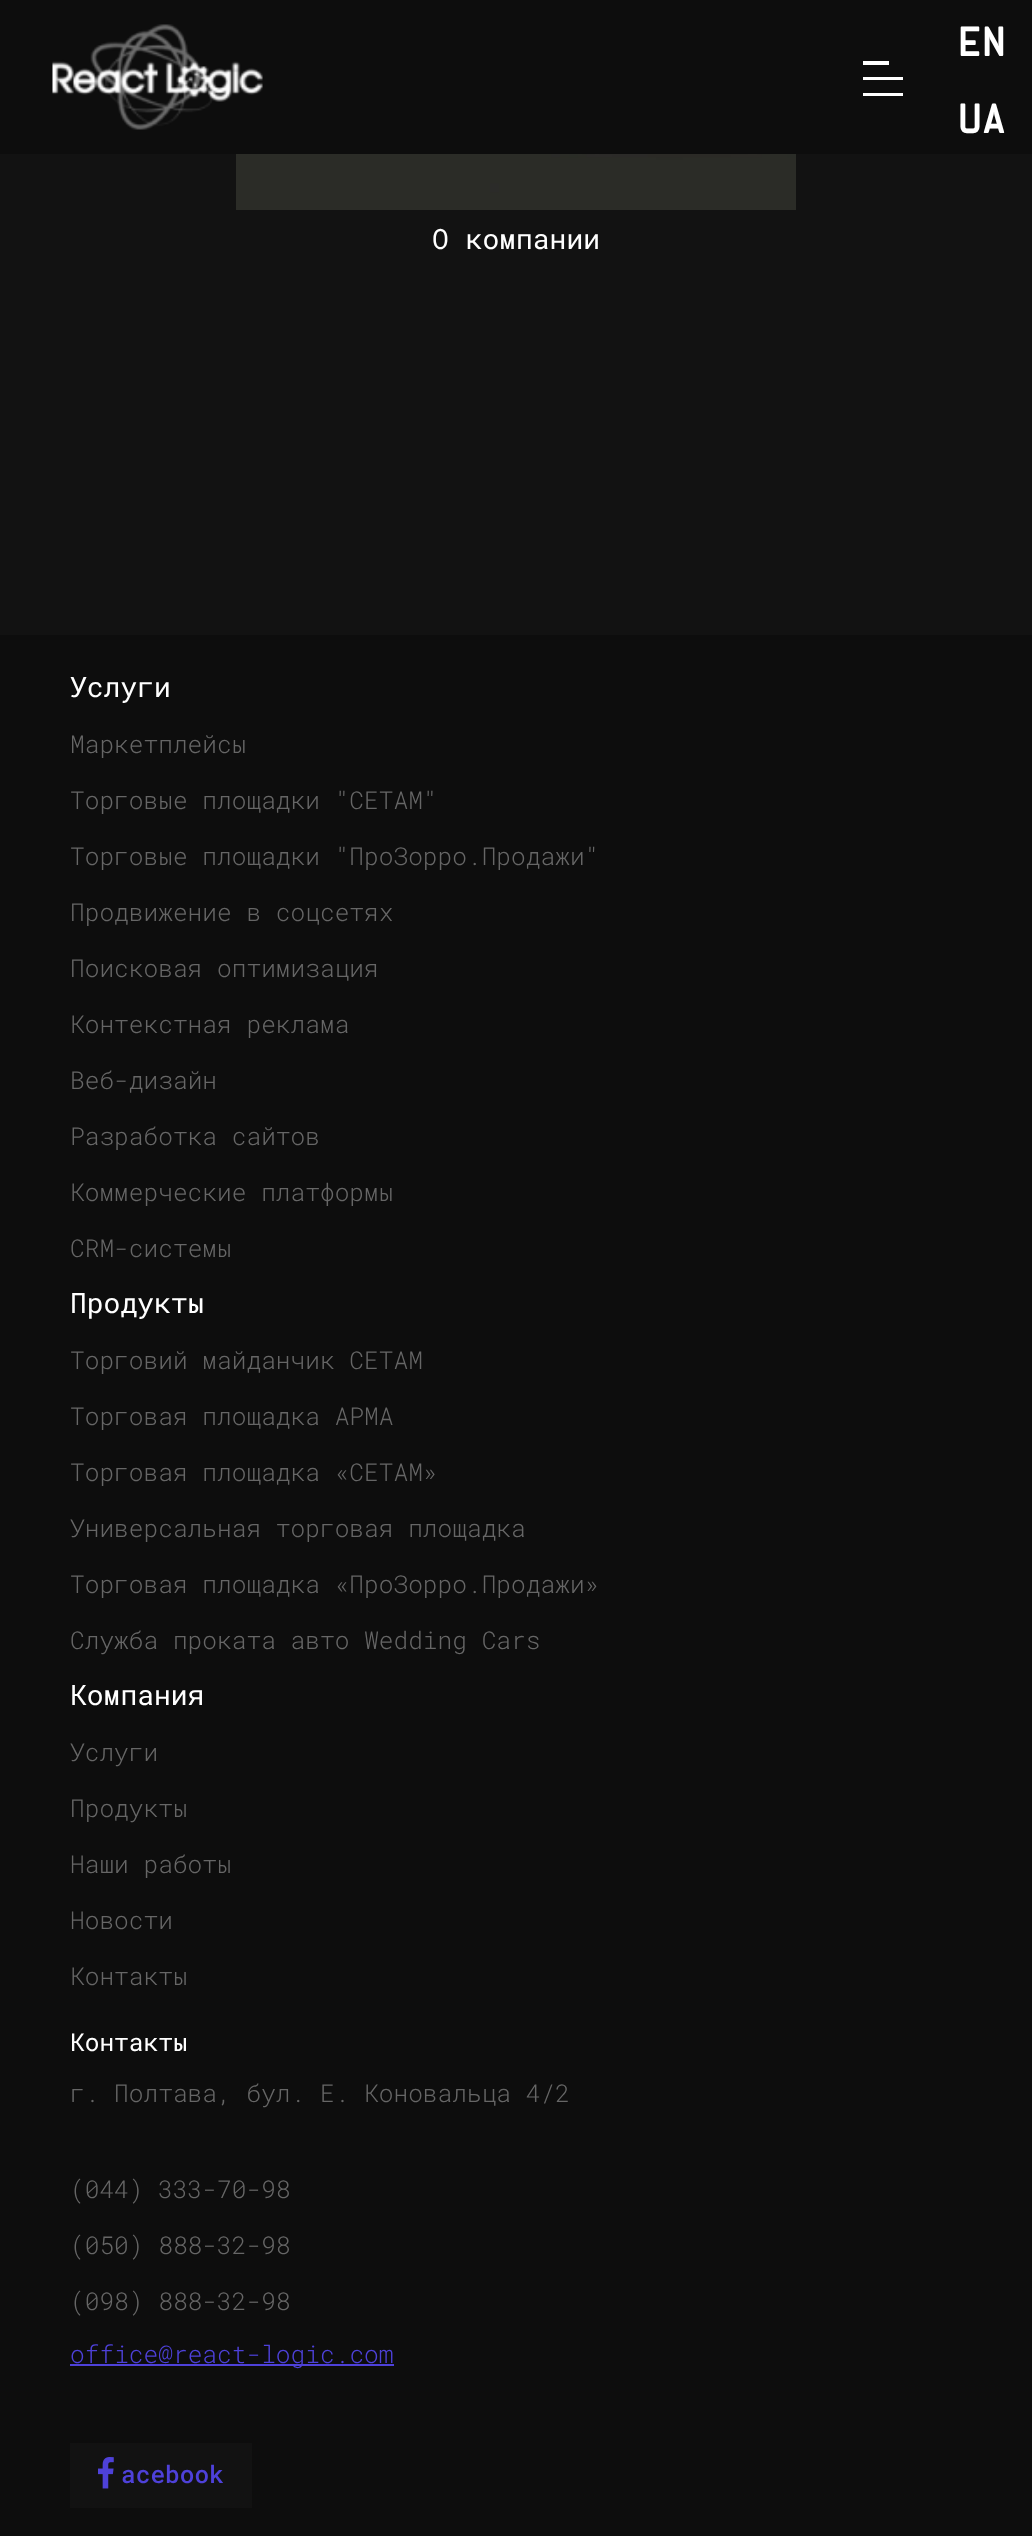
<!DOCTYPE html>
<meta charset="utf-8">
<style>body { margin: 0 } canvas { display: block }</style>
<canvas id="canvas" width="1032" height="2536"></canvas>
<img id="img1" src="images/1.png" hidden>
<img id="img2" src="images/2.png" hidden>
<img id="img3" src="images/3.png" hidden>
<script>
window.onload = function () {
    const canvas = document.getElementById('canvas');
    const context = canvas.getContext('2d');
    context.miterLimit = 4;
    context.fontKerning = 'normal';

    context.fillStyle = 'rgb(13, 13, 13)';
    context.fillRect(0, 0, 1032, 2536);
    context.drawImage(document.getElementById('img1'), 52, 24, 211, 106);
    context.fillStyle = 'rgb(255, 255, 255)';
    context.beginPath();
    context.moveTo(863, 61);
    context.lineTo(889, 61);
    context.lineTo(889, 65);
    context.lineTo(863, 65);
    context.closePath();
    context.moveTo(863, 77);
    context.lineTo(903, 77);
    context.lineTo(903, 80);
    context.lineTo(863, 80);
    context.closePath();
    context.moveTo(863, 93);
    context.lineTo(903, 93);
    context.lineTo(903, 96);
    context.lineTo(863, 96);
    context.closePath();
    context.fill('evenodd');
    context.fillStyle = 'rgb(18, 18, 18)';
    context.fillRect(0, 154, 1032, 481);
    context.drawImage(document.getElementById('img2'), 236, 154, 560, 56);
    context.fillStyle = 'rgb(78, 65, 217)';
    context.fillRect(70, 2364, 324, 2);
    context.fillStyle = 'rgb(18, 18, 18)';
    context.fillRect(70, 2443, 182, 65);
    context.drawImage(document.getElementById('img3'), 98, 2457, 16, 32);
    context.font = 'bold 42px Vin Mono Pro';
    context.fillStyle = 'rgb(255, 255, 255)';
    context.fillText('EN', 958, 56);
    context.fillText('UA', 958, 133);
    context.font = '28px Roboto Mono';
    context.fillText('О компании', 432, 249);
    context.fillText('Услуги', 70, 697);
    context.font = '300 24.5px Roboto Mono';
    context.fillStyle = 'rgb(102, 102, 102)';
    context.fillText('Маркетплейсы', 70, 753);
    context.fillText('Торговые площадки "СЕТАМ"', 70, 809);
    context.fillText('Торговые площадки "ПроЗорро.Продажи"', 70, 865);
    context.fillText('Продвижение в соцсетях', 70, 921);
    context.fillText('Поисковая оптимизация', 70, 977);
    context.fillText('Контекстная реклама', 70, 1033);
    context.fillText('Веб-дизайн', 70, 1089);
    context.fillText('Разработка сайтов', 70, 1145);
    context.fillText('Коммерческие платформы', 70, 1201);
    context.fillText('CRM-системы', 70, 1257);
    context.font = '28px Roboto Mono';
    context.fillStyle = 'rgb(255, 255, 255)';
    context.fillText('Продукты', 70, 1313);
    context.font = '300 24.5px Roboto Mono';
    context.fillStyle = 'rgb(102, 102, 102)';
    context.fillText('Торговий майданчик СЕТАМ', 70, 1369);
    context.fillText('Торговая площадка АРМА', 70, 1425);
    context.fillText('Торговая площадка «СЕТАМ»', 70, 1481);
    context.fillText('Универсальная торговая площадка', 70, 1537);
    context.fillText('Торговая площадка «ПроЗорро.Продажи»', 70, 1593);
    context.fillText('Служба проката авто Wedding Cars', 70, 1649);
    context.font = '28px Roboto Mono';
    context.fillStyle = 'rgb(255, 255, 255)';
    context.fillText('Компания', 70, 1705);
    context.font = '300 24.5px Roboto Mono';
    context.fillStyle = 'rgb(102, 102, 102)';
    context.fillText('Услуги', 70, 1761);
    context.fillText('Продукты', 70, 1817);
    context.fillText('Наши работы', 70, 1873);
    context.fillText('Новости', 70, 1929);
    context.fillText('Контакты', 70, 1985);
    context.font = '24.5px Roboto Mono';
    context.fillStyle = 'rgb(255, 255, 255)';
    context.fillText('Контакты', 70, 2051);
    context.font = '300 24.5px Roboto Mono';
    context.fillStyle = 'rgb(102, 102, 102)';
    context.fillText('г. Полтава, бул. Е. Коновальца 4/2', 70, 2102);
    context.fillText('(044) 333-70-98', 70, 2198);
    context.fillText('(050) 888-32-98', 70, 2254);
    context.fillText('(098) 888-32-98', 70, 2310);
    context.fillStyle = 'rgb(78, 65, 217)';
    context.fillText('office@react-logic.com', 70, 2363);
    context.font = '500 24.5px Roboto Mono';
    context.fillText('acebook', 121, 2483);
};
</script>
